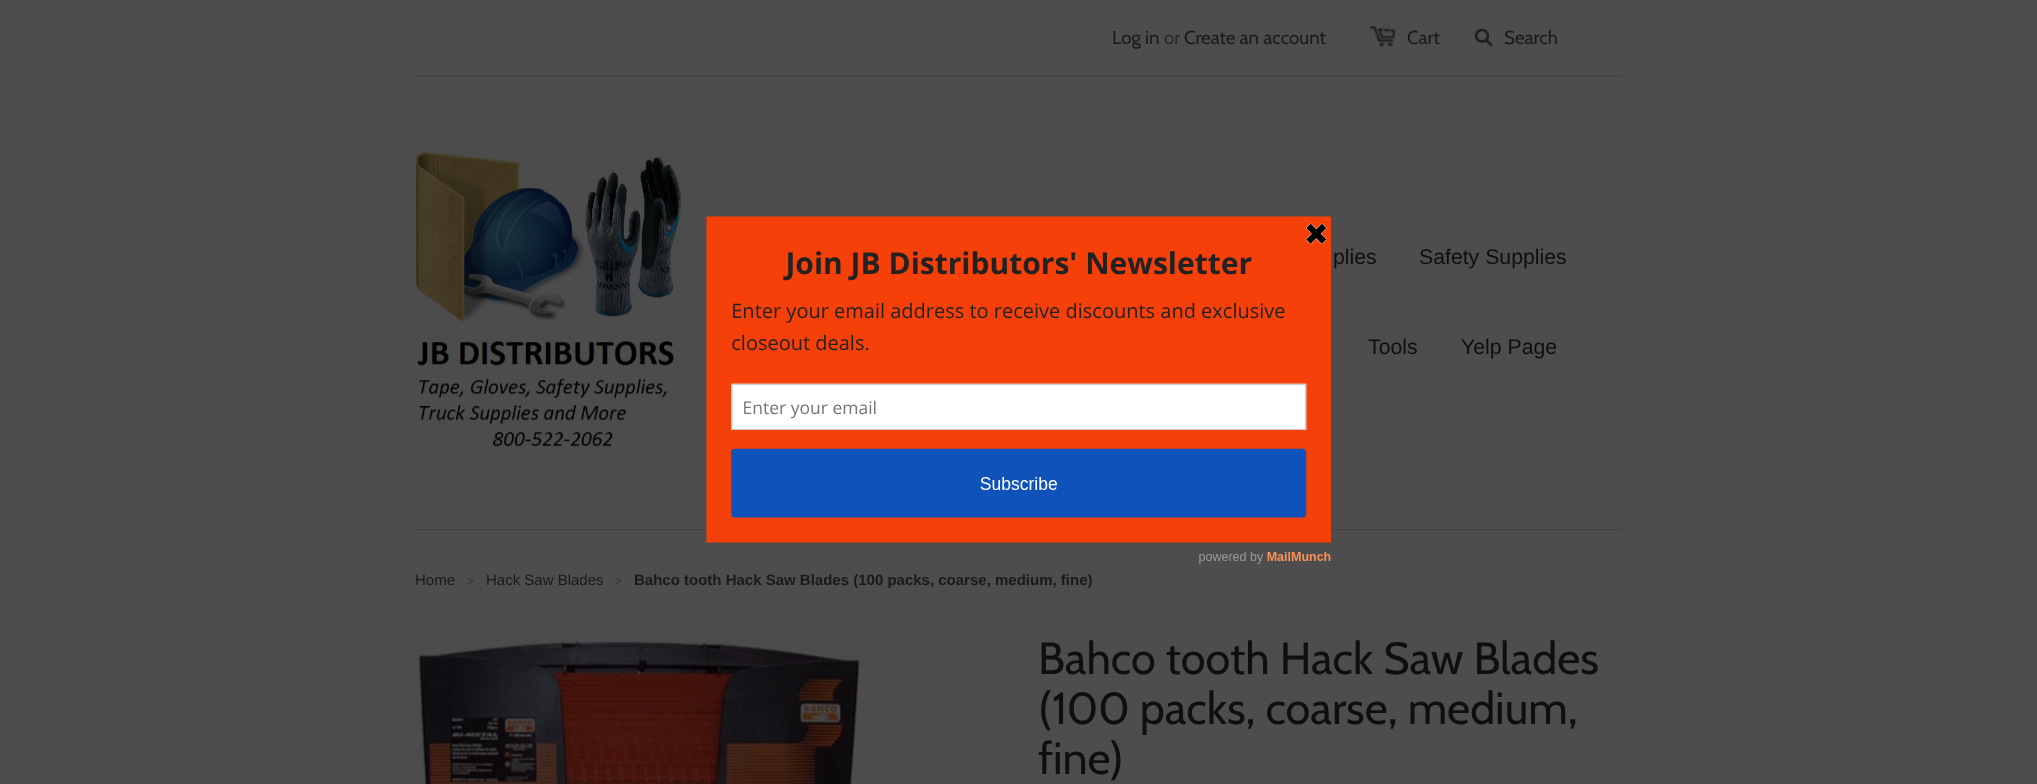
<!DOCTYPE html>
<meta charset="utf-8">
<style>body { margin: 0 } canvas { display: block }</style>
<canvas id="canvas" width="2037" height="784"></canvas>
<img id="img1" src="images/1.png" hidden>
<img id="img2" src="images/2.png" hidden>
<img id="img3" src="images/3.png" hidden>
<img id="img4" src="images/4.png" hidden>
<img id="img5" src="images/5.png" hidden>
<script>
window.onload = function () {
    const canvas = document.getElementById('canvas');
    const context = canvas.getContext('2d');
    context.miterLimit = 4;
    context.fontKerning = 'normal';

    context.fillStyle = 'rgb(77, 77, 77)';
    context.fillRect(0, 0, 2037, 784);
    context.fillStyle = 'rgb(66, 66, 66)';
    context.fillRect(415, 75, 1208, 1);
    context.drawImage(document.getElementById('img1'), 1369, 26, 27, 21);
    context.drawImage(document.getElementById('img2'), 1475, 28, 18, 19);
    context.fillRect(415, 529, 1208, 1);
    context.drawImage(document.getElementById('img3'), 706, 216, 625, 348);
    context.drawImage(document.getElementById('img4'), 415, 151, 268, 299);
    context.drawImage(document.getElementById('img5'), 415, 632, 450, 152);
    context.font = '18.75px Cabin';
    context.fillStyle = 'rgb(26, 26, 26)';
    context.fillText('Log in', 1112, 44);
    context.fillStyle = 'rgb(41, 41, 41)';
    context.fillText('or', 1164, 44);
    context.fillStyle = 'rgb(26, 26, 26)';
    context.fillText('Create an account', 1184, 44);
    context.font = '14px Cabin';
    context.fillStyle = 'rgb(68, 68, 68)';
    context.fillText('0', 1382, 34);
    context.font = '18.75px Cabin';
    context.fillStyle = 'rgb(26, 26, 26)';
    context.fillText('Cart', 1407, 44);
    context.fillText('Search', 1504, 44);
    context.font = '21.25px Liberation Sans';
    context.fillStyle = 'rgb(15, 15, 15)';
    context.fillText('plies', 1333, 264);
    context.fillText('Safety Supplies', 1419, 264);
    context.fillText('Tools', 1368, 354);
    context.fillText('Yelp Page', 1461, 354);
    context.font = '15px Liberation Sans';
    context.fillStyle = 'rgb(26, 26, 26)';
    context.fillText('Home', 415, 585);
    context.font = '12px Liberation Sans';
    context.fillStyle = 'rgb(51, 51, 51)';
    context.fillText('>', 467, 585);
    context.font = '15px Liberation Sans';
    context.fillStyle = 'rgb(26, 26, 26)';
    context.fillText('Hack Saw Blades', 486, 585);
    context.font = '12px Liberation Sans';
    context.fillStyle = 'rgb(51, 51, 51)';
    context.fillText('>', 615, 585);
    context.font = 'bold 15px Liberation Sans';
    context.fillStyle = 'rgb(26, 26, 26)';
    context.fillText('Bahco tooth Hack Saw Blades (100 packs, coarse, medium, fine)', 634, 585);
    context.font = '45px Cabin';
    context.fillStyle = 'rgb(15, 15, 15)';
    context.fillText('Bahco tooth Hack Saw Blades', 1038, 674);
    context.fillText('(100 packs, coarse, medium,', 1038, 724);
    context.fillText('fine)', 1038, 774);
};
</script>
